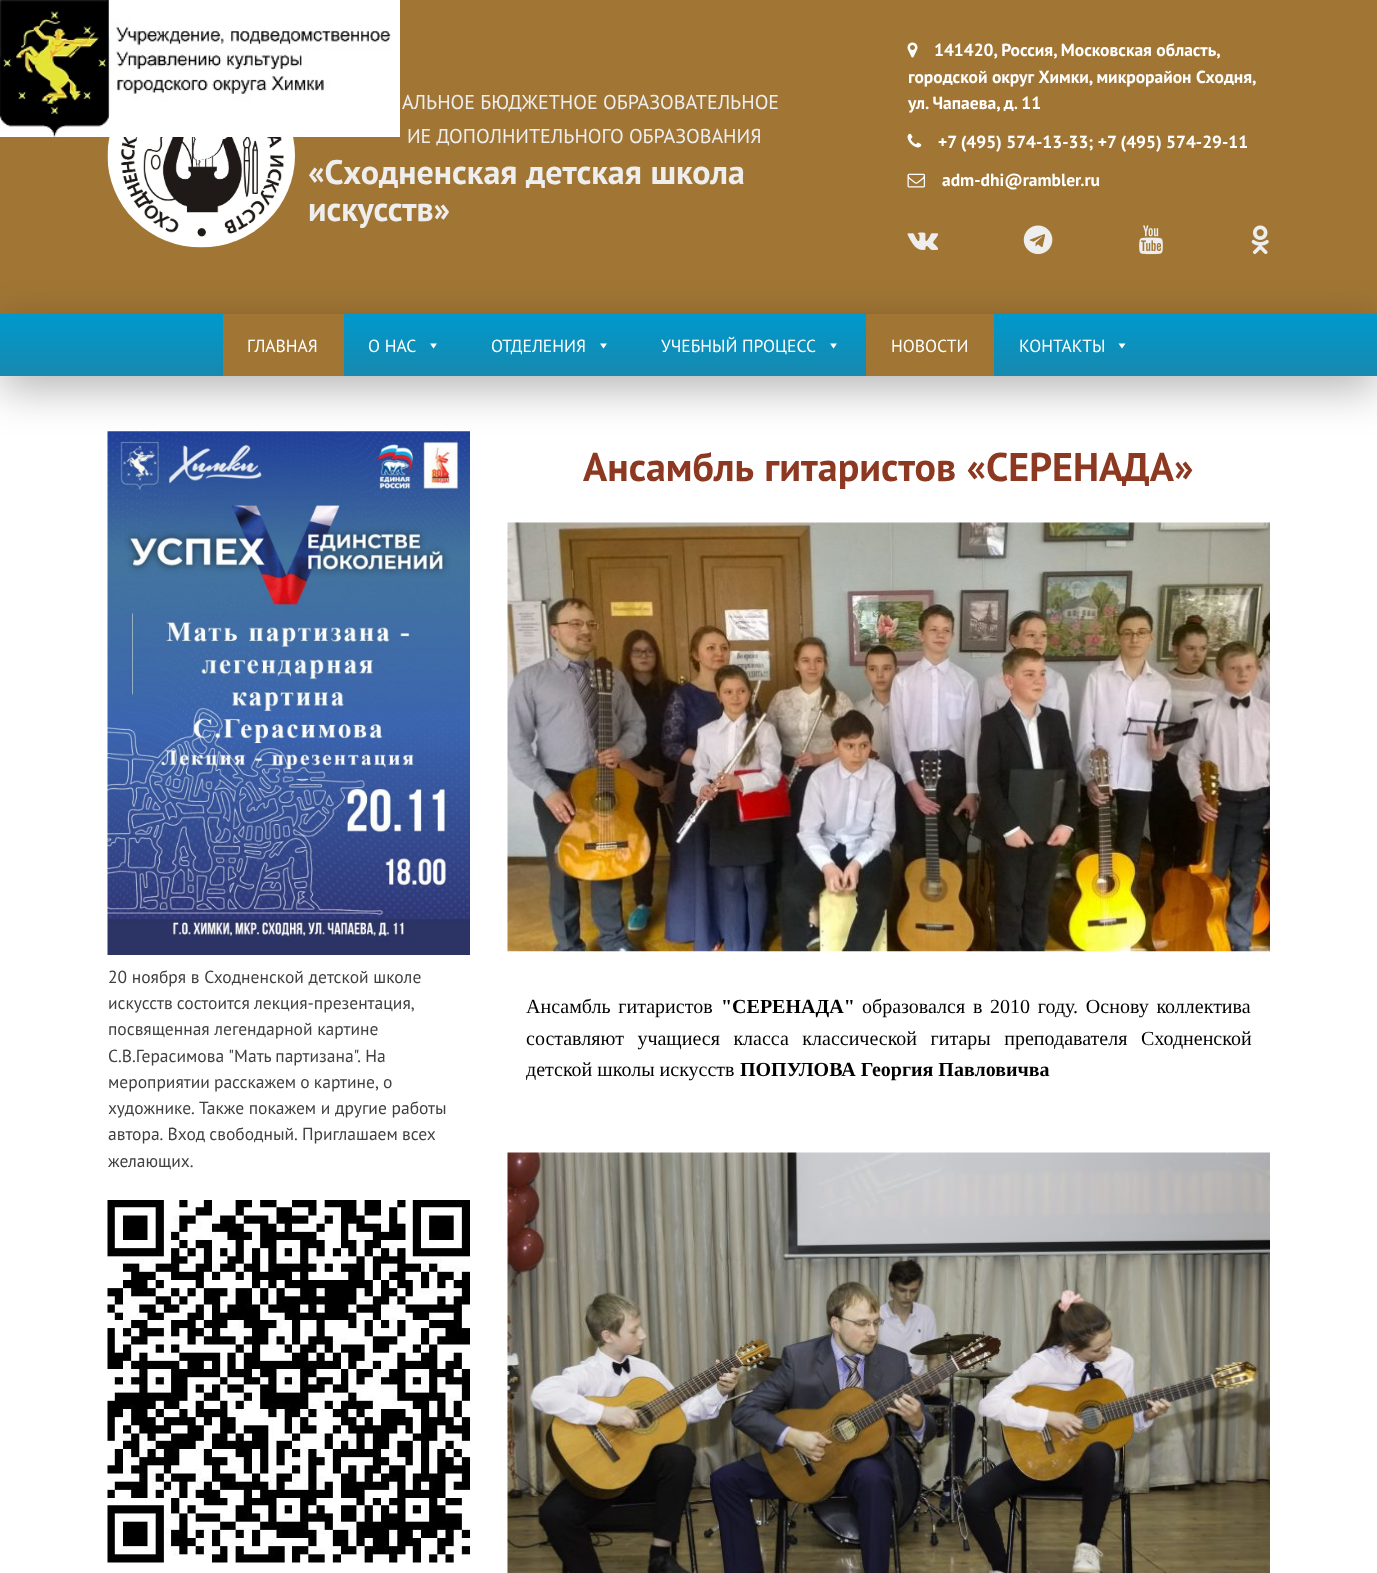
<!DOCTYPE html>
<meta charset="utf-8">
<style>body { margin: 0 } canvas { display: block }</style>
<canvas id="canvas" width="1377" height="1573"></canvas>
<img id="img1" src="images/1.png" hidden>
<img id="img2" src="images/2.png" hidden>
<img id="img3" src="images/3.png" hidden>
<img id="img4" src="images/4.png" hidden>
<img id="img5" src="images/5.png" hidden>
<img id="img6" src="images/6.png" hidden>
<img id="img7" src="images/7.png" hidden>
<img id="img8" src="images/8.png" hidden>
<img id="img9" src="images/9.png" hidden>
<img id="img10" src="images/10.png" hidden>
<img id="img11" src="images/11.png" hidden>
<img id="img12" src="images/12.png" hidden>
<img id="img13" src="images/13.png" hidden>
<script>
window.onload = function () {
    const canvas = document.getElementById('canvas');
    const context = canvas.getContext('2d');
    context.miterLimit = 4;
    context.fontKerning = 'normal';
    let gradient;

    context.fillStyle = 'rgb(255, 255, 255)';
    context.fillRect(0, 0, 1377, 1573);
    context.fillStyle = 'rgb(161, 118, 53)';
    context.fillRect(0, 0, 1377, 314);
    context.drawImage(document.getElementById('img1'), 0, 0, 400, 137);
    context.drawImage(document.getElementById('img2'), 107, 137, 188, 111);
    context.drawImage(document.getElementById('img3'), 907, 42, 11, 16);
    context.drawImage(document.getElementById('img4'), 907, 133, 15, 15);
    context.drawImage(document.getElementById('img5'), 907, 173, 18, 15);
    context.drawImage(document.getElementById('img6'), 907, 232, 32, 18);
    context.drawImage(document.getElementById('img7'), 1023, 225, 30, 30);
    context.drawImage(document.getElementById('img8'), 1139, 225, 24, 30);
    context.drawImage(document.getElementById('img9'), 1251, 225, 18, 30);
    context.fillStyle = 'rgba(0, 0, 0, 0.29)';
    context.filter = 'blur(22px)';
    context.beginPath();
    context.rect(0, 326, 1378, 63);
    context.fill();
    context.filter = 'none';
    gradient = context.createLinearGradient(689, 314, 689, 376);
    gradient.addColorStop(0, 'rgb(0, 153, 204)');
    gradient.addColorStop(1, 'rgb(23, 137, 175)');
    context.fillStyle = gradient;
    context.fillRect(0, 314, 1377, 62);
    context.fillStyle = 'rgb(161, 118, 53)';
    context.fillRect(223, 314, 121, 62);
    context.fillStyle = 'rgb(255, 255, 255)';
    context.beginPath();
    context.moveTo(437, 343.5);
    context.lineTo(433.5, 348.5);
    context.lineTo(430, 343.5);
    context.closePath();
    context.fill();
    context.beginPath();
    context.moveTo(607, 343.5);
    context.lineTo(603.5, 348.5);
    context.lineTo(600, 343.5);
    context.closePath();
    context.fill();
    context.beginPath();
    context.moveTo(837, 343.5);
    context.lineTo(833.5, 348.5);
    context.lineTo(830, 343.5);
    context.closePath();
    context.fill();
    context.fillStyle = 'rgb(161, 118, 53)';
    context.fillRect(866, 314, 128, 62);
    context.fillStyle = 'rgb(255, 255, 255)';
    context.beginPath();
    context.moveTo(1125.5, 343.5);
    context.lineTo(1122, 348.5);
    context.lineTo(1118.5, 343.5);
    context.closePath();
    context.fill();
    context.drawImage(document.getElementById('img10'), 107, 431, 363, 524);
    context.drawImage(document.getElementById('img11'), 107, 1200, 363, 363);
    context.drawImage(document.getElementById('img12'), 507, 522, 763, 430);
    context.drawImage(document.getElementById('img13'), 507, 1152, 763, 421);
    context.font = '20px PT Sans';
    context.fillStyle = 'rgb(238, 238, 238)';
    context.fillText('АЛЬНОЕ БЮДЖЕТНОЕ ОБРАЗОВАТЕЛЬНОЕ', 402, 109);
    context.fillText('ИЕ ДОПОЛНИТЕЛЬНОГО ОБРАЗОВАНИЯ', 407, 143);
    context.font = 'bold 34px PT Sans';
    context.fillText('«Сходненская детская школа', 308, 184);
    context.fillText('искусств»', 308, 221);
    context.font = 'bold 17.5px PT Sans';
    context.fillStyle = 'rgb(255, 255, 255)';
    context.fillText('141420, Россия, Московская область,', 934, 56);
    context.fillText('городской округ Химки, микрорайон Сходня,', 908, 83);
    context.fillText('ул. Чапаева, д. 11', 908, 109);
    context.fillText('+7 (495) 574-13-33; +7 (495) 574-29-11', 938, 148);
    context.fillText('adm-dhi@rambler.ru', 942, 186);
    context.font = '17.5px PT Sans';
    context.fillText('ГЛАВНАЯ', 247, 352);
    context.fillText('О НАС', 368, 352);
    context.fillText('ОТДЕЛЕНИЯ', 491, 352);
    context.fillText('УЧЕБНЫЙ ПРОЦЕСС', 661, 352);
    context.fillText('НОВОСТИ', 891, 352);
    context.fillText('КОНТАКТЫ', 1019, 352);
    context.fillStyle = 'rgb(64, 64, 64)';
    context.fillText('20 ноября в Сходненской детской школе', 108, 983);
    context.wordSpacing = '-0.5px';
    context.fillText('искусств состоится лекция-презентация,', 108, 1009);
    context.wordSpacing = '0px';
    context.fillText('посвященная легендарной картине', 108, 1035);
    context.wordSpacing = '-0.5px';
    context.fillText('С.В.Герасимова "Мать партизана". На', 108, 1062);
    context.fillText('мероприятии расскажем о картине, о', 108, 1088);
    context.wordSpacing = '0px';
    context.fillText('художнике. Также покажем и другие работы', 108, 1114);
    context.wordSpacing = '-0.5px';
    context.fillText('автора. Вход свободный. Приглашаем всех', 108, 1140);
    context.wordSpacing = '0px';
    context.fillText('желающих.', 108, 1167);
    context.font = 'bold 40px PT Sans';
    context.fillStyle = 'rgb(141, 56, 33)';
    context.fillText('Ансамбль гитаристов «СЕРЕНАДА»', 583, 481);
    context.wordSpacing = '2.75px';
    context.font = '20px Liberation Serif';
    context.fillStyle = 'rgb(0, 0, 0)';
    context.fillText('Ансамбль гитаристов', 526, 1013);
    context.wordSpacing = '0px';
    context.font = 'bold 20px Liberation Serif';
    context.fillText('"СЕРЕНАДА"', 721, 1013);
    context.wordSpacing = '2.75px';
    context.font = '20px Liberation Serif';
    context.fillText('образовался в 2010 году. Основу коллектива', 862, 1013);
    context.wordSpacing = '8.5px';
    context.fillText('составляют учащиеся класса классической гитары преподавателя Сходненской', 526, 1045);
    context.wordSpacing = '0px';
    context.fillText('детской школы искусств', 526, 1076);
    context.font = 'bold 20px Liberation Serif';
    context.fillText('ПОПУЛОВА Георгия Павловичва', 740, 1076);
};
</script>
